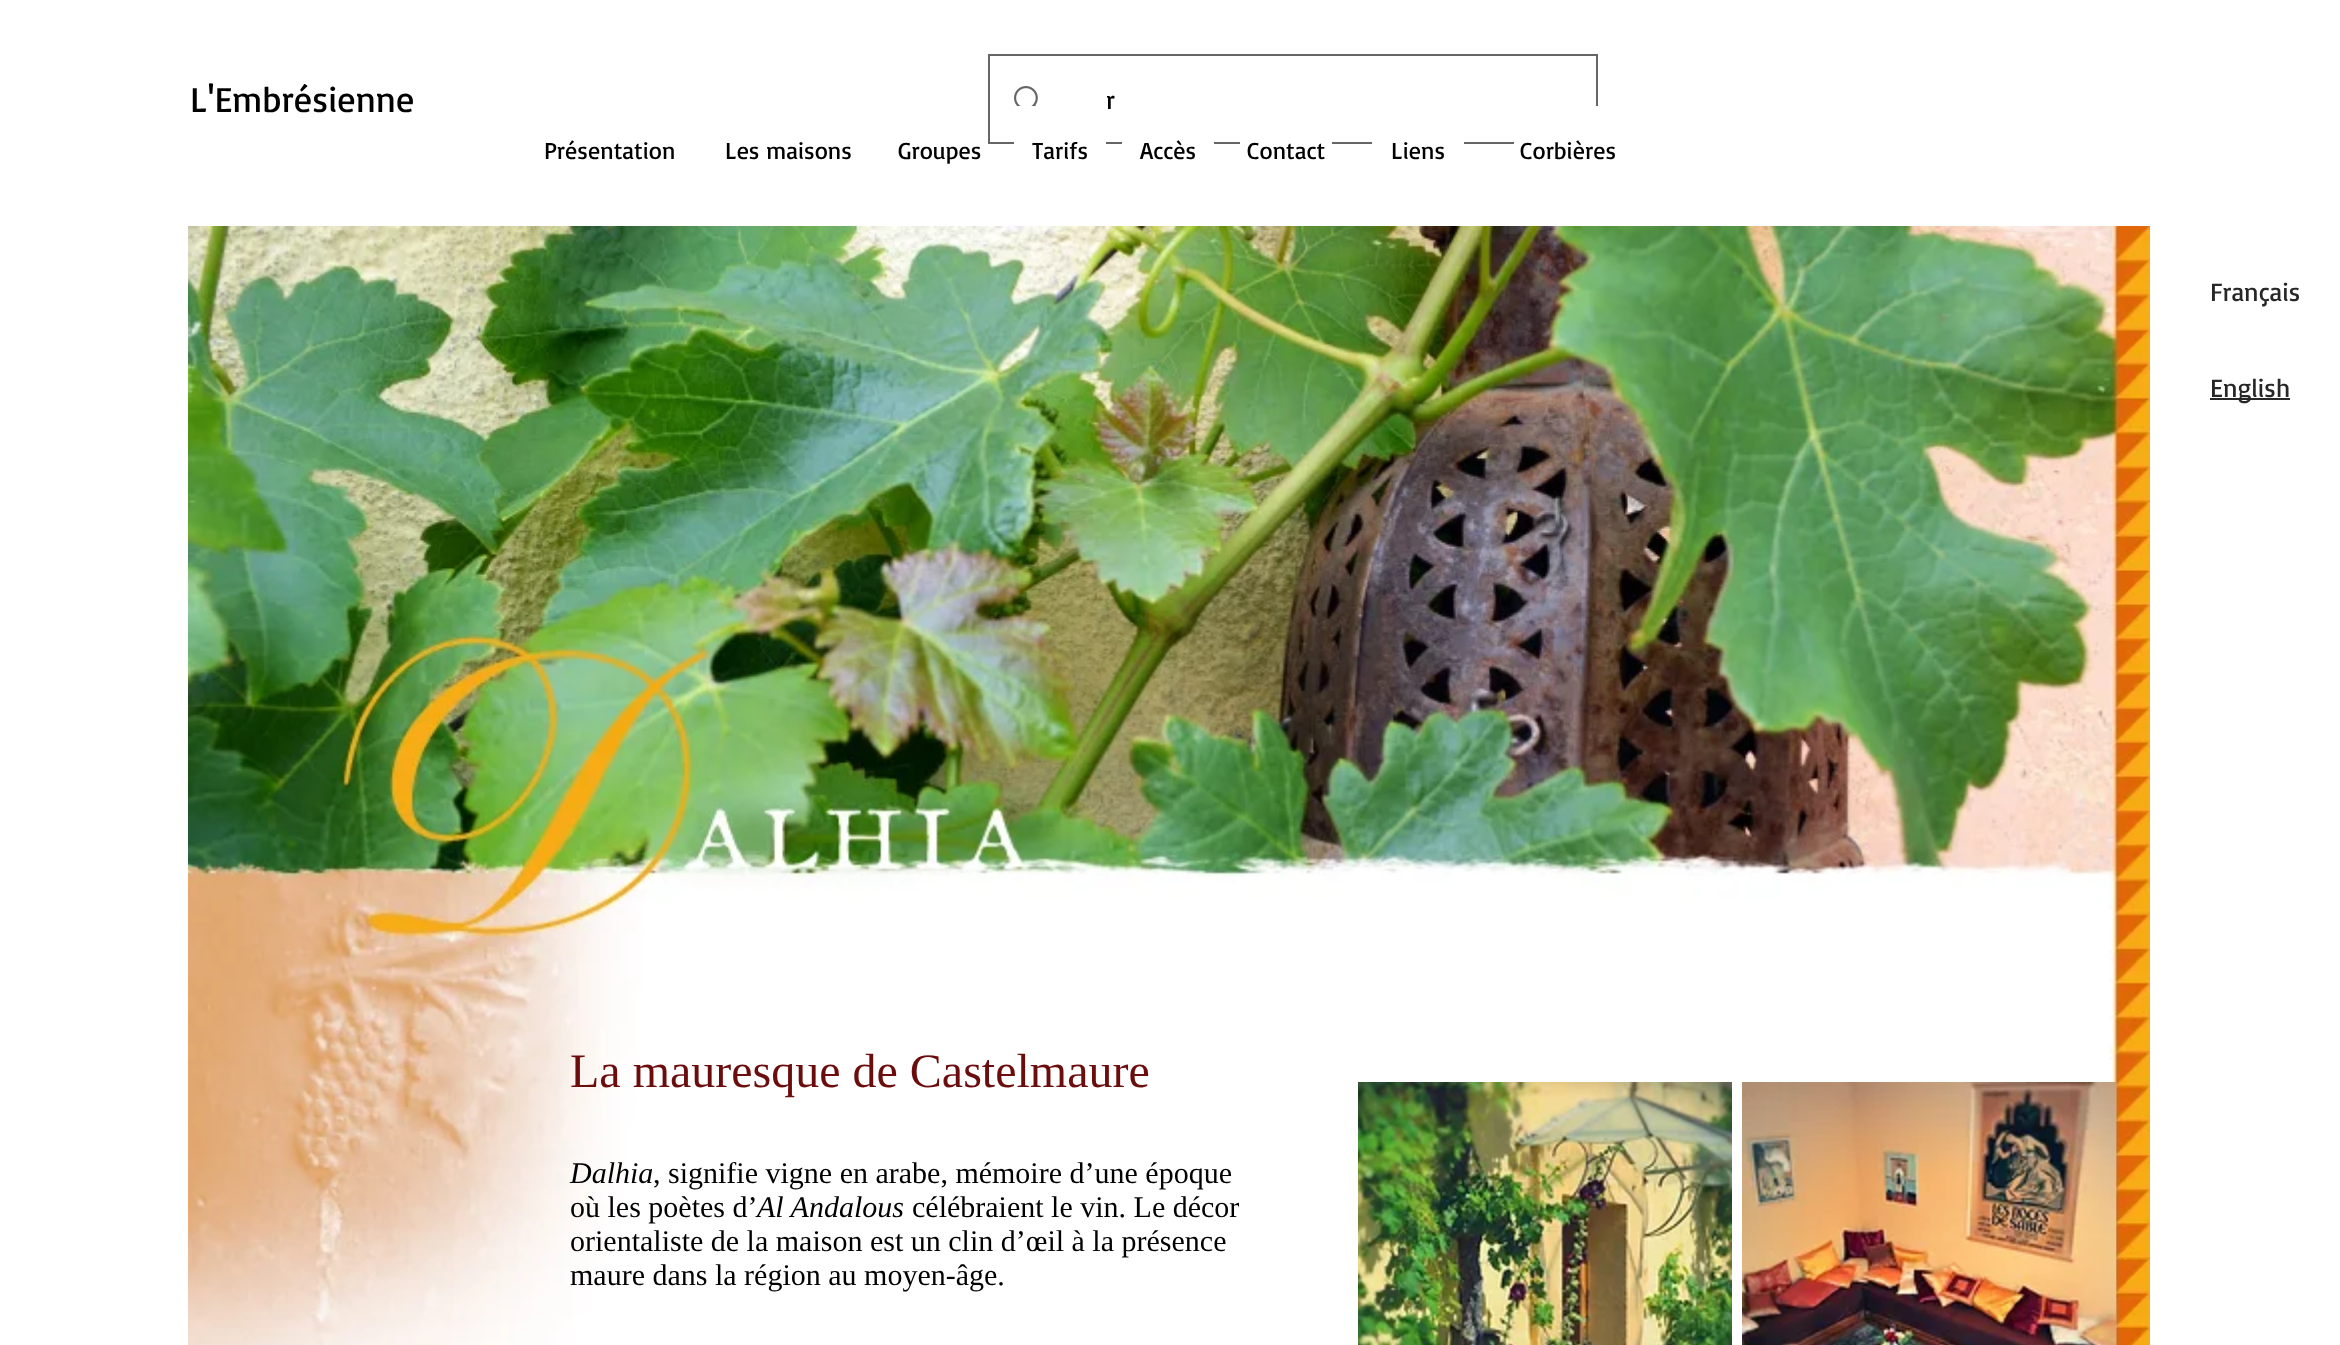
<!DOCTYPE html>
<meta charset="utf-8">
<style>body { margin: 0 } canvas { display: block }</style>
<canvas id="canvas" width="2340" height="1345"></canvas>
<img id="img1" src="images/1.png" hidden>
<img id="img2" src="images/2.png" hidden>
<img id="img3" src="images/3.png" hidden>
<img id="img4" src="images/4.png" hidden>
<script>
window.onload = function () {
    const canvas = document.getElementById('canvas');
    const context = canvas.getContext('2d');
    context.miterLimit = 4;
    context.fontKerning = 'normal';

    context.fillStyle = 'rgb(255, 255, 255)';
    context.fillRect(0, 0, 2340, 1345);
    context.strokeStyle = 'rgb(102, 102, 102)';
    context.lineWidth = 2;
    context.strokeRect(989, 55, 608, 88);
    context.drawImage(document.getElementById('img1'), 1014, 86, 24, 20);
    context.fillRect(1014, 142, 92, 2);
    context.fillRect(1122, 142, 92, 2);
    context.fillRect(1240, 142, 92, 2);
    context.fillRect(1372, 142, 92, 2);
    context.fillRect(1514, 106, 84, 38);
    context.drawImage(document.getElementById('img2'), 188, 226, 1962, 1119);
    context.drawImage(document.getElementById('img3'), 1358, 1082, 374, 263);
    context.drawImage(document.getElementById('img4'), 1742, 1082, 374, 263);
    context.fillStyle = 'rgb(39, 39, 39)';
    context.fillRect(2210, 398, 80, 2);
    context.font = '36px Basic';
    context.fillStyle = 'rgb(0, 0, 0)';
    context.fillText('L\'Embrésienne', 190, 112);
    context.font = '26px Basic';
    context.fillText('r', 1106, 109);
    context.font = '24px Basic';
    context.fillText('Présentation', 544, 159);
    context.fillText('Les maisons', 725, 159);
    context.fillText('Groupes', 898, 159);
    context.fillText('Tarifs', 1032, 159);
    context.fillText('Accès', 1140, 159);
    context.fillText('Contact', 1247, 159);
    context.fillText('Liens', 1391, 159);
    context.fillText('Corbières', 1520, 159);
    context.font = '48px Liberation Serif';
    context.fillStyle = 'rgb(108, 13, 13)';
    context.fillText('La mauresque de Castelmaure', 570, 1087);
    context.font = 'italic 30px Liberation Serif';
    context.fillStyle = 'rgb(0, 0, 0)';
    context.fillText('Dalhia', 570, 1183);
    context.font = '30px Liberation Serif';
    context.fillText(', signifie vigne en arabe, mémoire d’une époque', 653, 1183);
    context.fillText('où les poètes d’', 570, 1217);
    context.font = 'italic 30px Liberation Serif';
    context.fillText('Al Andalous', 757, 1217);
    context.font = '30px Liberation Serif';
    context.fillText('célébraient le vin. Le décor', 912, 1217);
    context.fillText('orientaliste de la maison est un clin d’œil à la présence', 570, 1251);
    context.fillText('maure dans la région au moyen-âge.', 570, 1285);
    context.font = '26px Basic';
    context.fillStyle = 'rgb(39, 39, 39)';
    context.fillText('Français', 2210, 301);
    context.fillText('English', 2210, 397);
};
</script>
